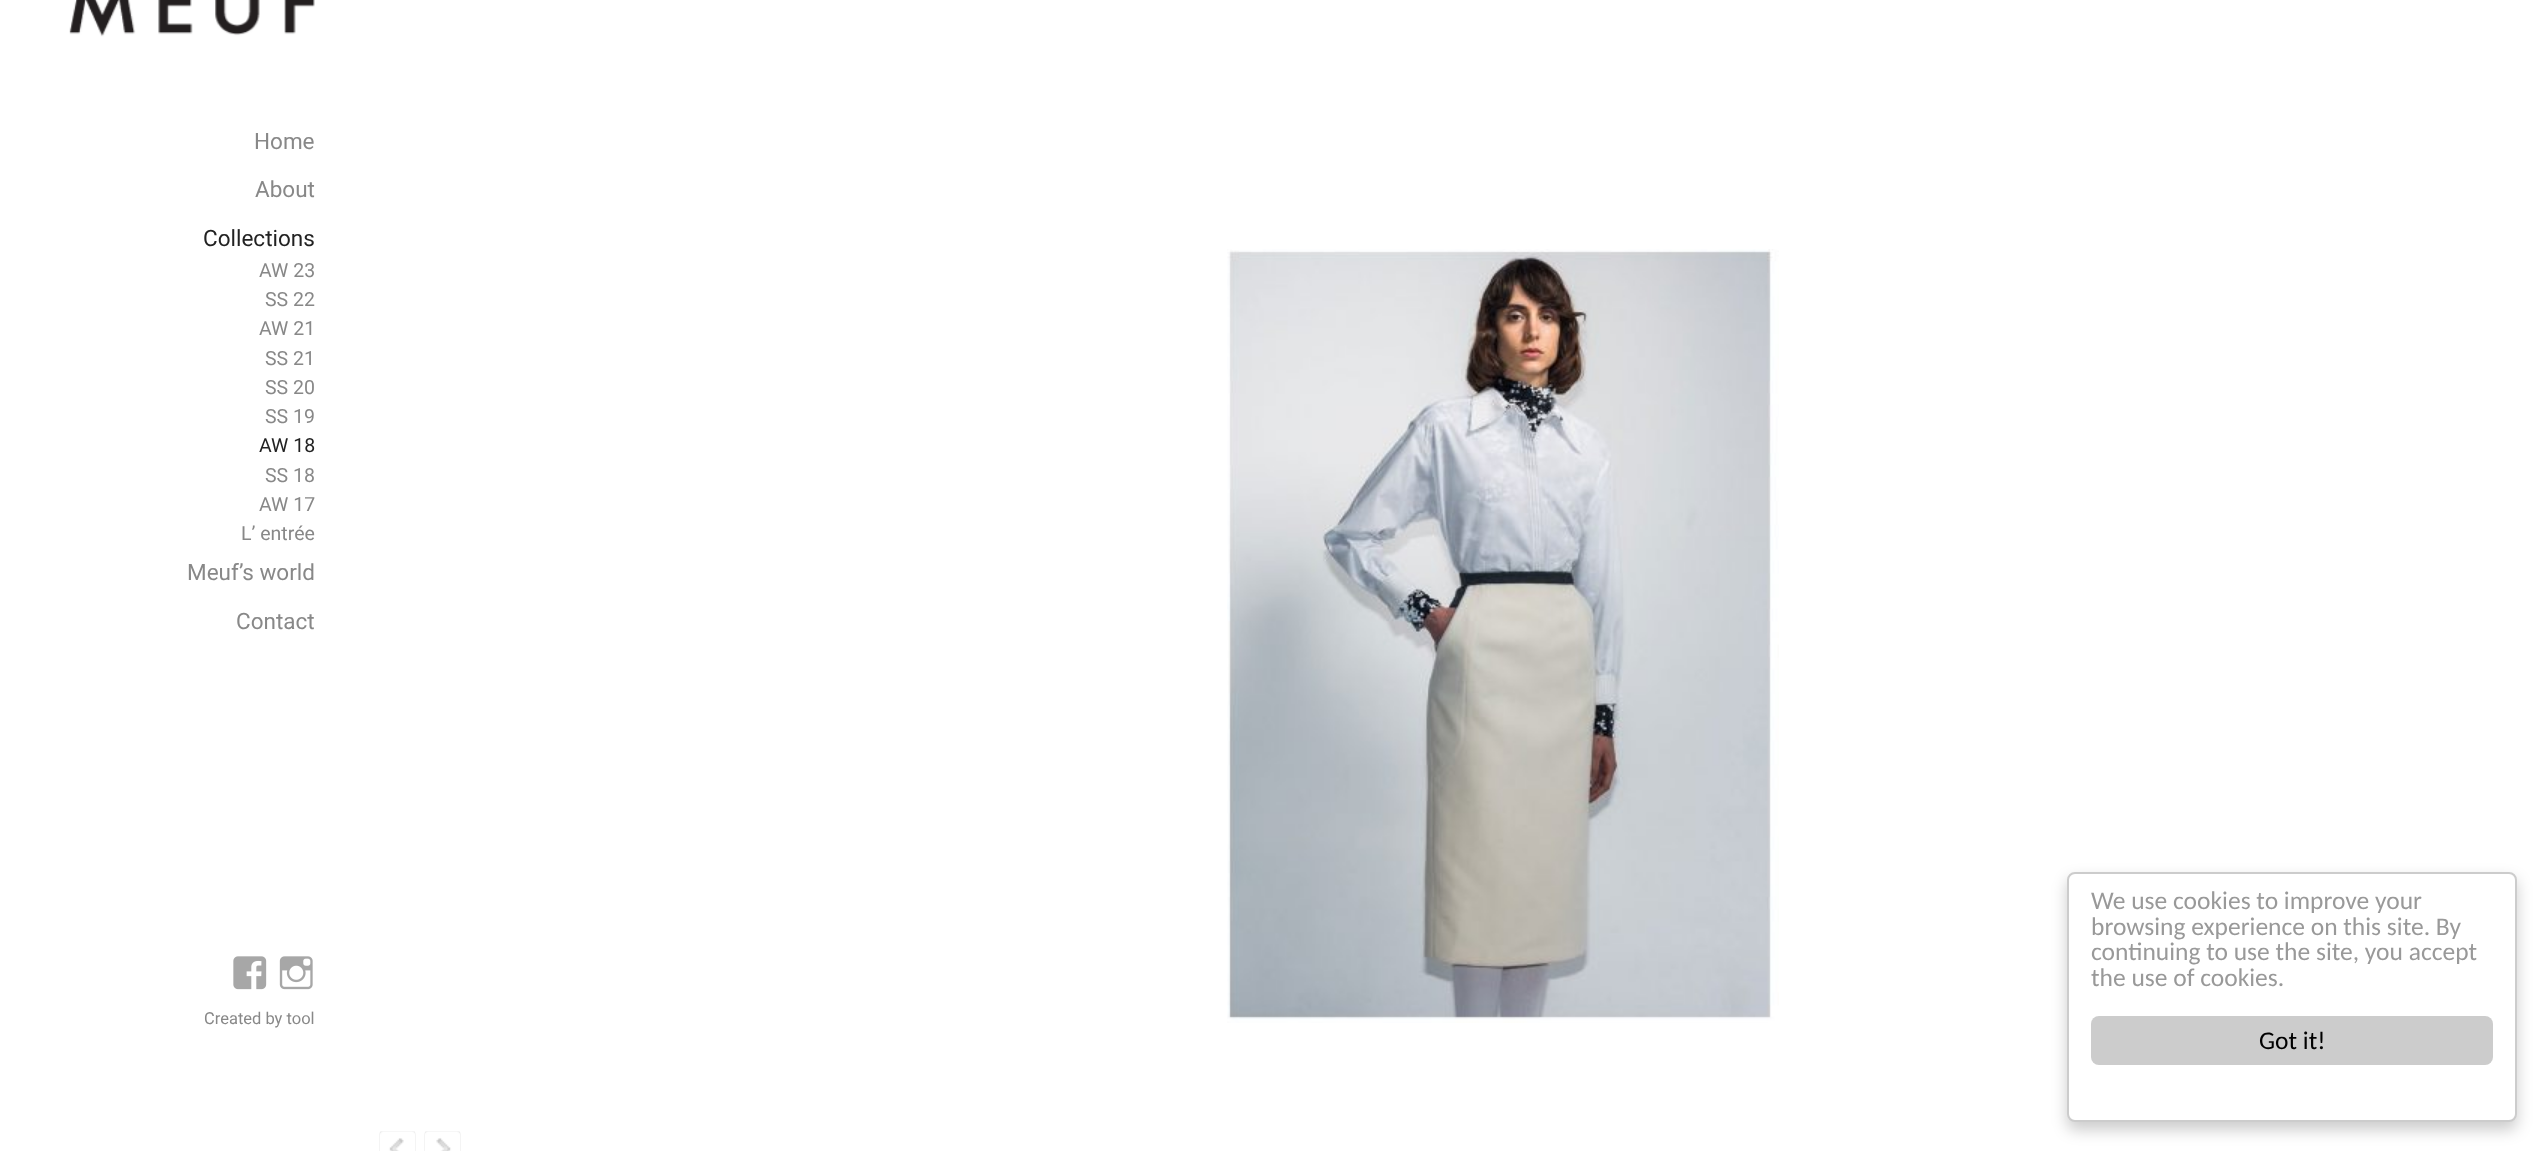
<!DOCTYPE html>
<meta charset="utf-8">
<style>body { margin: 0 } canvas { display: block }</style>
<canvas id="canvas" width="2547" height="1151"></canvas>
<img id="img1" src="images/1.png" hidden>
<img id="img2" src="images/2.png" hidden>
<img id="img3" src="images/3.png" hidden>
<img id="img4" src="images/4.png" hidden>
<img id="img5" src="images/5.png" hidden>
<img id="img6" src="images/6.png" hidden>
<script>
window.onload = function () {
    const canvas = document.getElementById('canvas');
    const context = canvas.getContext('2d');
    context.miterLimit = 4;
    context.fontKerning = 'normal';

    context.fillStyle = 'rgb(255, 255, 255)';
    context.fillRect(0, 0, 2547, 1151);
    context.drawImage(document.getElementById('img1'), 69, 0, 246, 37);
    context.drawImage(document.getElementById('img2'), 1227, 249, 552, 774);
    context.drawImage(document.getElementById('img3'), 379, 1131, 37, 20);
    context.drawImage(document.getElementById('img4'), 424, 1131, 37, 20);
    context.drawImage(document.getElementById('img5'), 233, 956, 34, 34);
    context.drawImage(document.getElementById('img6'), 279, 956, 34, 34);
    context.fillStyle = 'rgba(0, 0, 0, 0.2)';
    context.filter = 'blur(7.5px)';
    context.beginPath();
    context.roundRect(2067, 879, 450, 251, 8);
    context.fill();
    context.filter = 'none';
    context.fillStyle = 'rgb(255, 255, 255)';
    context.beginPath();
    context.roundRect(2068, 873, 448, 248, 7);
    context.fill();
    context.strokeStyle = 'rgb(204, 204, 204)';
    context.lineWidth = 2;
    context.stroke();
    context.fillStyle = 'rgb(204, 204, 204)';
    context.beginPath();
    context.roundRect(2091, 1016, 402, 49, 8);
    context.fill();
    context.font = '22.5px Roboto';
    context.fillStyle = 'rgb(136, 136, 136)';
    context.fillText('Home', 254, 149);
    context.fillText('About', 255, 197);
    context.fillStyle = 'rgb(34, 34, 34)';
    context.fillText('Collections', 203, 246);
    context.font = '19.5px Roboto';
    context.fillStyle = 'rgb(136, 136, 136)';
    context.fillText('AW 23', 259, 277);
    context.fillText('SS 22', 265, 306);
    context.fillText('AW 21', 259, 335);
    context.fillText('SS 21', 265, 365);
    context.fillText('SS 20', 265, 394);
    context.fillText('SS 19', 265, 423);
    context.fillStyle = 'rgb(34, 34, 34)';
    context.fillText('AW 18', 259, 452);
    context.fillStyle = 'rgb(136, 136, 136)';
    context.fillText('SS 18', 265, 482);
    context.fillText('AW 17', 259, 511);
    context.fillText('L’ entrée', 241, 540);
    context.font = '22.5px Roboto';
    context.fillText('Meuf’s world', 187, 580);
    context.fillText('Contact', 236, 629);
    context.font = '16.5px Roboto';
    context.fillText('Created by tool', 204, 1024);
    context.font = '25.5px Carlito';
    context.fillStyle = 'rgb(153, 153, 153)';
    context.fillText('We use cookies to improve your', 2091, 909);
    context.fillText('browsing experience on this site. By', 2091, 935);
    context.fillText('continuing to use the site, you accept', 2091, 960);
    context.fillText('the use of cookies.', 2091, 986);
    context.fillStyle = 'rgb(0, 0, 0)';
    context.fillText('Got it!', 2259, 1049);
};
</script>
